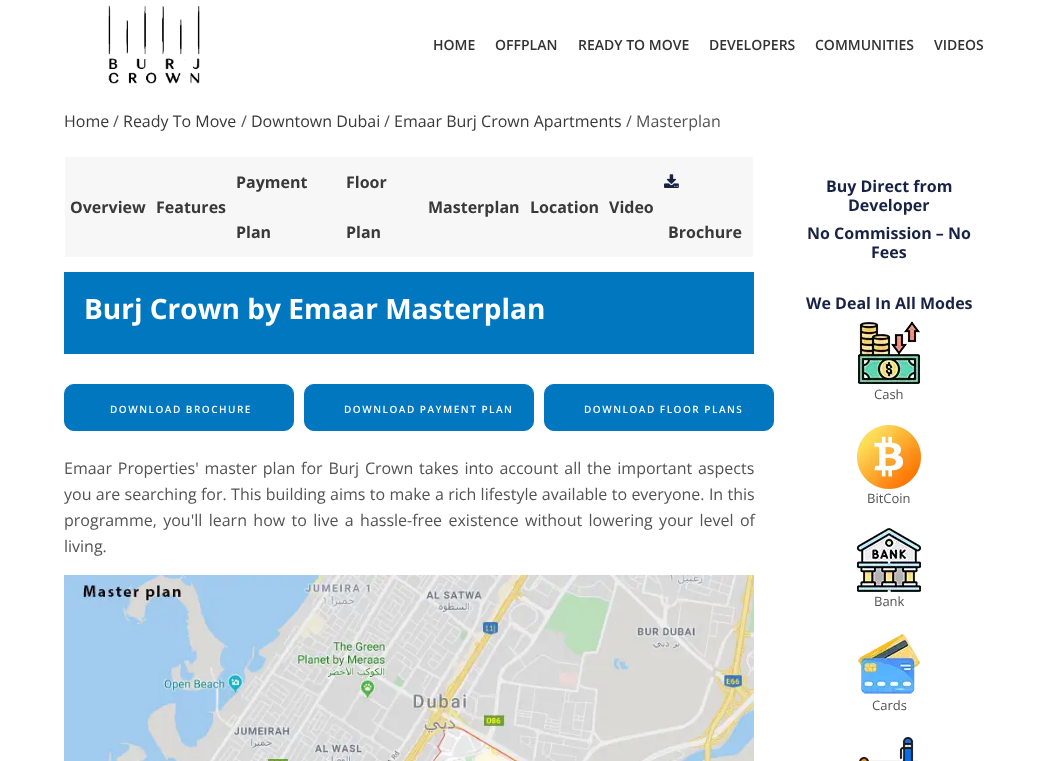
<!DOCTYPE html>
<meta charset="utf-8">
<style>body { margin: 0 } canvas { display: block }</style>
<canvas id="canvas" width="1058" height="761"></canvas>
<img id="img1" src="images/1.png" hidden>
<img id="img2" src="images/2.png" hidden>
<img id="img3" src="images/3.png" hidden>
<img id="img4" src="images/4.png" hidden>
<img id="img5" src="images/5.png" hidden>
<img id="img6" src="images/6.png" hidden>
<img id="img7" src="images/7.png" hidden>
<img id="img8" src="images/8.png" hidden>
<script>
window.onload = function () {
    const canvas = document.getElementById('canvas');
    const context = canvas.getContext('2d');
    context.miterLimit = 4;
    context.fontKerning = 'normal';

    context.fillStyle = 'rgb(255, 255, 255)';
    context.fillRect(0, 0, 1058, 761);
    context.drawImage(document.getElementById('img1'), 108, 5, 92, 79);
    context.fillStyle = 'rgb(247, 247, 247)';
    context.fillRect(65, 157, 688, 100);
    context.drawImage(document.getElementById('img2'), 664, 174, 15, 14);
    context.fillStyle = 'rgb(0, 119, 190)';
    context.fillRect(64, 272, 690, 82);
    context.beginPath();
    context.roundRect(64.5, 384.5, 229, 46, 9.5);
    context.fill();
    context.strokeStyle = 'rgb(0, 119, 190)';
    context.stroke();
    context.beginPath();
    context.roundRect(304.5, 384.5, 229, 46, 9.5);
    context.fill();
    context.stroke();
    context.beginPath();
    context.roundRect(544.5, 384.5, 229, 46, 9.5);
    context.fill();
    context.stroke();
    context.drawImage(document.getElementById('img3'), 64, 575, 690, 186);
    context.drawImage(document.getElementById('img4'), 858, 321, 62, 63);
    context.drawImage(document.getElementById('img5'), 857, 425, 64, 64);
    context.drawImage(document.getElementById('img6'), 857, 528, 64, 64);
    context.drawImage(document.getElementById('img7'), 858, 634, 62, 60);
    context.drawImage(document.getElementById('img8'), 859, 737, 59, 24);
    context.font = '600 14px Open Sans';
    context.fillStyle = 'rgb(51, 51, 51)';
    context.fillText('HOME', 433, 50);
    context.fillText('OFFPLAN', 495, 50);
    context.fillText('READY TO MOVE', 578, 50);
    context.fillText('DEVELOPERS', 709, 50);
    context.fillText('COMMUNITIES', 815, 50);
    context.fillText('VIDEOS', 934, 50);
    context.font = '16px Open Sans';
    context.fillStyle = 'rgb(58, 57, 57)';
    context.fillText('Home', 64, 127);
    context.fillStyle = 'rgb(83, 83, 83)';
    context.fillText('/', 113, 127);
    context.fillStyle = 'rgb(58, 57, 57)';
    context.fillText('Ready To Move', 123, 127);
    context.fillStyle = 'rgb(83, 83, 83)';
    context.fillText('/', 241, 127);
    context.fillStyle = 'rgb(58, 57, 57)';
    context.fillText('Downtown Dubai', 251, 127);
    context.fillStyle = 'rgb(83, 83, 83)';
    context.fillText('/', 384, 127);
    context.fillStyle = 'rgb(58, 57, 57)';
    context.fillText('Emaar Burj Crown Apartments', 394, 127);
    context.fillStyle = 'rgb(83, 83, 83)';
    context.fillText('/ Masterplan', 626, 127);
    context.font = 'bold 16px Open Sans';
    context.fillStyle = 'rgb(58, 57, 57)';
    context.fillText('Overview', 70, 213);
    context.fillText('Features', 156, 213);
    context.fillText('Payment', 236, 188);
    context.fillText('Plan', 236, 238);
    context.fillText('Floor', 346, 188);
    context.fillText('Plan', 346, 238);
    context.fillText('Masterplan', 428, 213);
    context.fillText('Location', 530, 213);
    context.fillText('Video', 609, 213);
    context.fillText('Brochure', 668, 238);
    context.font = 'bold 28px Open Sans';
    context.fillStyle = 'rgb(255, 255, 255)';
    context.fillText('Burj Crown by Emaar Masterplan', 84, 319);
    context.letterSpacing = '1.5px';
    context.font = '600 10px Open Sans';
    context.fillText('DOWNLOAD BROCHURE', 110, 413);
    context.fillText('DOWNLOAD PAYMENT PLAN', 344, 413);
    context.fillText('DOWNLOAD FLOOR PLANS', 584, 413);
    context.letterSpacing = '0px';
    context.wordSpacing = '1.6px';
    context.font = '16px Open Sans';
    context.fillStyle = 'rgb(83, 83, 83)';
    context.fillText('Emaar Properties\' master plan for Burj Crown takes into account all the important aspects', 64, 474);
    context.wordSpacing = '0.2px';
    context.fillText('you are searching for. This building aims to make a rich lifestyle available to everyone. In this', 64, 500);
    context.wordSpacing = '2.25px';
    context.fillText('programme, you\'ll learn how to live a hassle-free existence without lowering your level of', 64, 526);
    context.wordSpacing = '0px';
    context.fillText('living.', 64, 552);
    context.font = 'bold 16px Open Sans';
    context.fillStyle = 'rgb(24, 34, 68)';
    context.fillText('Buy Direct from', 826, 192);
    context.fillText('Developer', 848, 211);
    context.fillText('No Commission – No', 807, 239);
    context.fillText('Fees', 871, 258);
    context.fillText('We Deal In All Modes', 806, 309);
    context.font = '13px Open Sans';
    context.fillStyle = 'rgb(83, 83, 83)';
    context.fillText('Cash', 874, 399);
    context.fillText('BitCoin', 867, 503);
    context.fillText('Bank', 874, 606);
    context.fillText('Cards', 872, 710);
};
</script>
